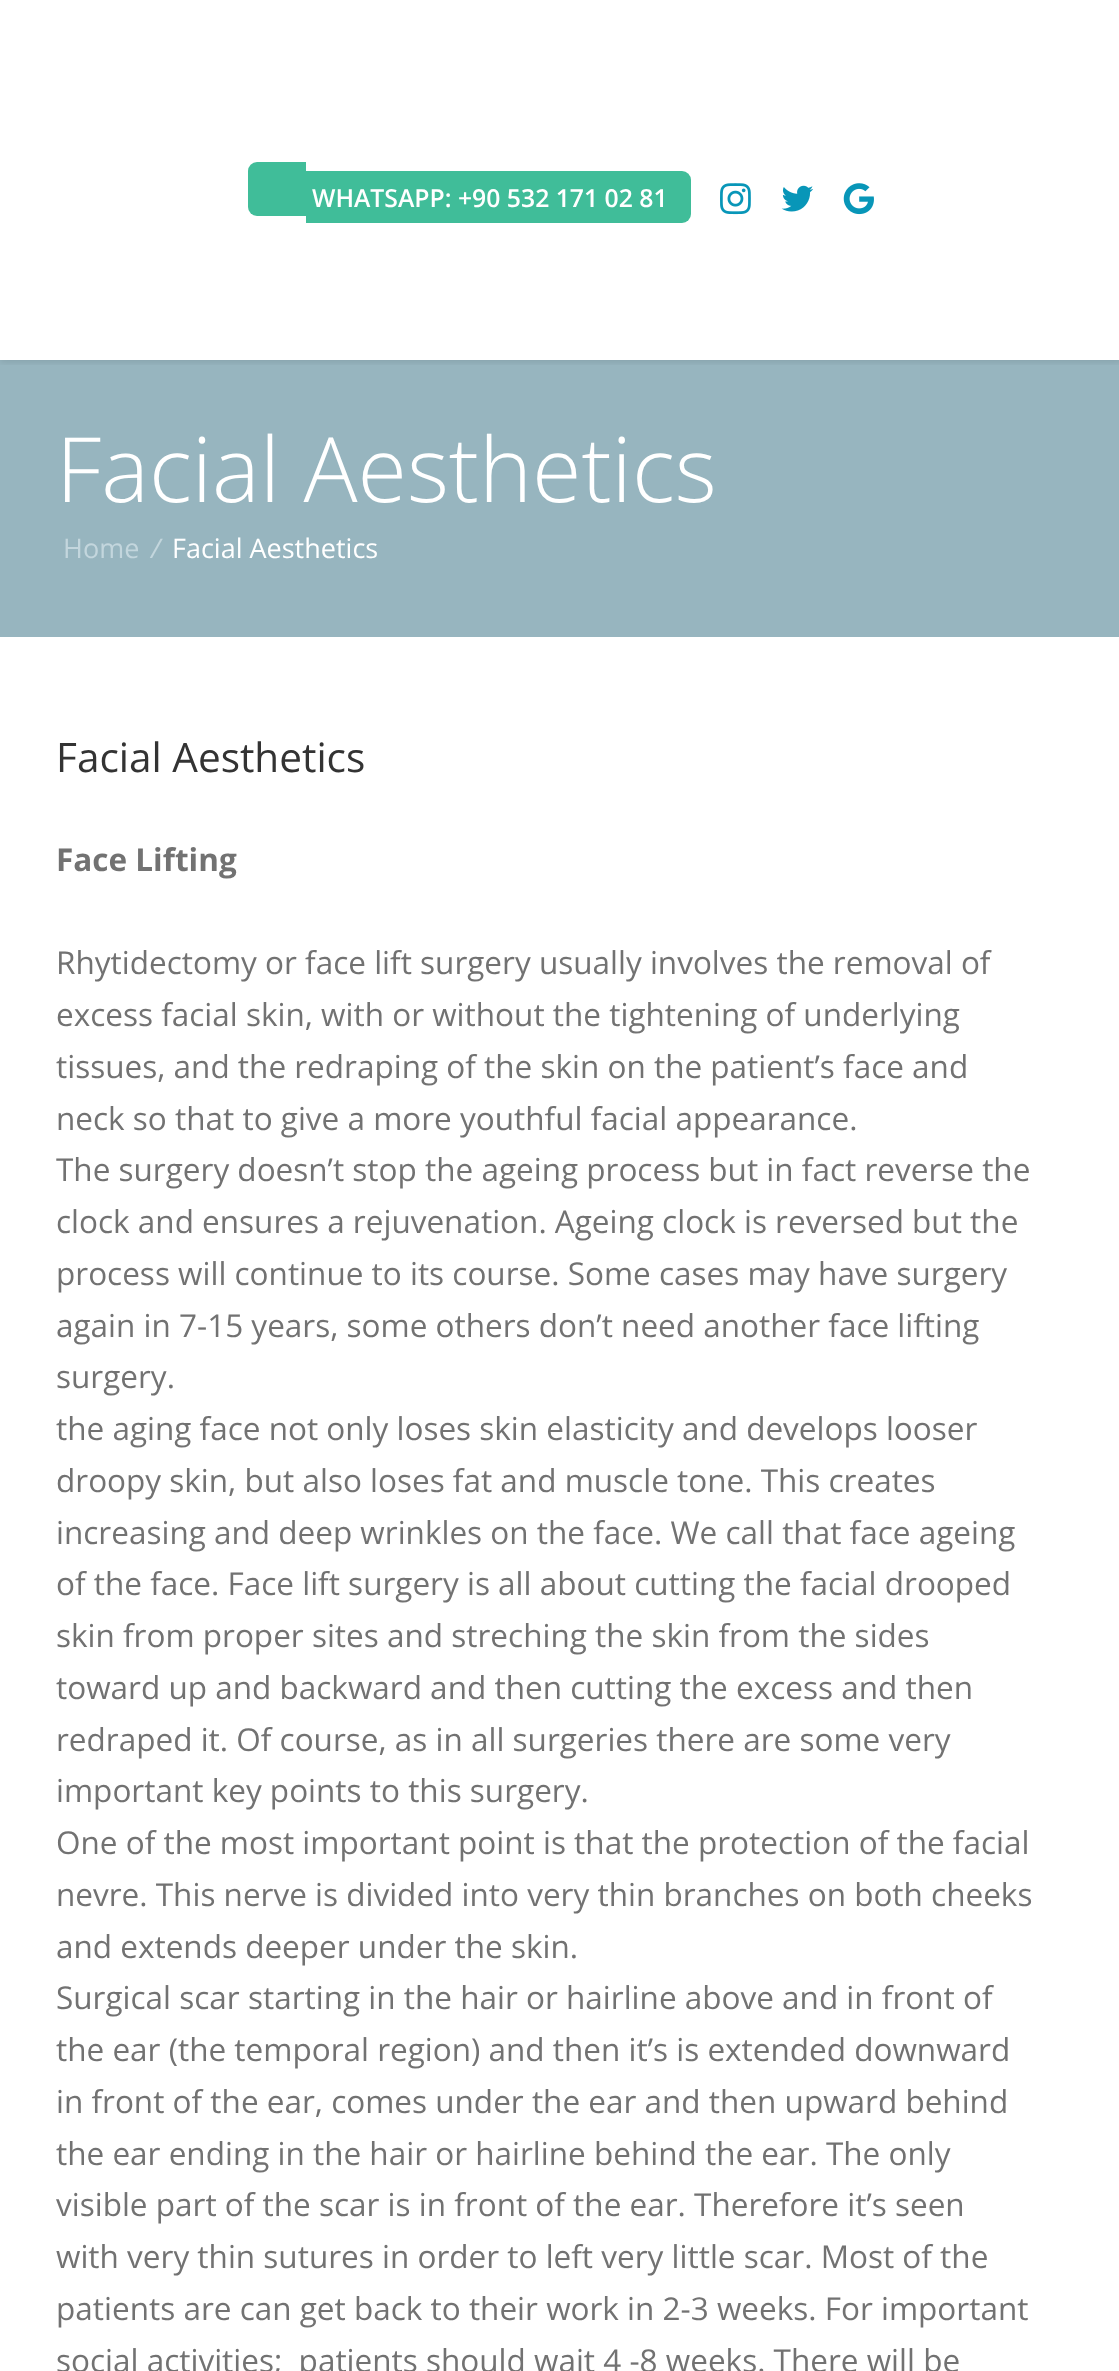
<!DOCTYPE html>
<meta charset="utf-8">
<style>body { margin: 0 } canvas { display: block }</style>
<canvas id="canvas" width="1119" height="2371"></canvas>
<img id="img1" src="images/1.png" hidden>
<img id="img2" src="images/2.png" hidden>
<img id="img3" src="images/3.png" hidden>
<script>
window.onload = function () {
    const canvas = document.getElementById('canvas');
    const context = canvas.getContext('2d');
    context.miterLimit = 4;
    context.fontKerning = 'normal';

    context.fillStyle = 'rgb(255, 255, 255)';
    context.fillRect(0, 0, 1119, 2371);
    context.fillStyle = 'rgb(151, 181, 191)';
    context.fillRect(0, 360, 1119, 277);
    context.save();
    context.beginPath();
    context.rect(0, 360, 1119, 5);
    context.clip();
    context.fillStyle = 'rgba(0, 0, 0, 0.1)';
    context.filter = 'blur(3.5px)';
    context.beginPath();
    context.rect(0, 2, 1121, 360);
    context.fill();
    context.filter = 'none';
    context.restore();
    context.fillStyle = 'rgb(64, 189, 153)';
    context.beginPath();
    context.roundRect(248, 162, 58, 54, [9, 0, 0, 9]);
    context.fill();
    context.beginPath();
    context.roundRect(306, 171, 385, 52, [0, 9, 9, 0]);
    context.fill();
    context.drawImage(document.getElementById('img1'), 720, 183, 31, 32);
    context.drawImage(document.getElementById('img2'), 781, 185, 32, 27);
    context.drawImage(document.getElementById('img3'), 843, 183, 31, 32);
    context.font = '600 24.75px Open Sans';
    context.fillStyle = 'rgb(255, 255, 255)';
    context.fillText('WHATSAPP: +90 532 171 02 81', 312, 207);
    context.font = '300 90px Open Sans';
    context.fillText('Facial Aesthetics', 56, 502);
    context.font = '27px Open Sans';
    context.fillStyle = 'rgb(195, 214, 221)';
    context.fillText('Home', 63, 558);
    context.font = 'italic 27px Open Sans';
    context.fillText('/', 151, 558);
    context.font = '27px Open Sans';
    context.fillStyle = 'rgb(255, 255, 255)';
    context.fillText('Facial Aesthetics', 172, 558);
    context.font = '40.5px Open Sans';
    context.fillStyle = 'rgb(51, 51, 51)';
    context.fillText('Facial Aesthetics', 56, 772);
    context.font = 'bold 31.5px Open Sans';
    context.fillStyle = 'rgb(114, 114, 114)';
    context.fillText('Face Lifting', 56, 871);
    context.font = '31.5px Open Sans';
    context.fillText('Rhytidectomy or face lift surgery usually involves the removal of', 56, 974);
    context.fillText('excess facial skin, with or without the tightening of underlying', 56, 1026);
    context.fillText('tissues, and the redraping of the skin on the patient’s face and', 56, 1078);
    context.fillText('neck so that to give a more youthful facial appearance.', 56, 1130);
    context.fillText('The surgery doesn’t stop the ageing process but in fact reverse the', 56, 1181);
    context.fillText('clock and ensures a rejuvenation. Ageing clock is reversed but the', 56, 1233);
    context.fillText('process will continue to its course. Some cases may have surgery', 56, 1285);
    context.fillText('again in 7-15 years, some others don’t need another face lifting', 56, 1337);
    context.fillText('surgery.', 56, 1388);
    context.fillText('the aging face not only loses skin elasticity and develops looser', 56, 1440);
    context.fillText('droopy skin, but also loses fat and muscle tone. This creates', 56, 1492);
    context.fillText('increasing and deep wrinkles on the face. We call that face ageing', 56, 1544);
    context.fillText('of the face. Face lift surgery is all about cutting the facial drooped', 56, 1595);
    context.fillText('skin from proper sites and streching the skin from the sides', 56, 1647);
    context.fillText('toward up and backward and then cutting the excess and then', 56, 1699);
    context.fillText('redraped it. Of course, as in all surgeries there are some very', 56, 1751);
    context.fillText('important key points to this surgery.', 56, 1802);
    context.fillText('One of the most important point is that the protection of the facial', 56, 1854);
    context.fillText('nevre. This nerve is divided into very thin branches on both cheeks', 56, 1906);
    context.fillText('and extends deeper under the skin.', 56, 1958);
    context.fillText('Surgical scar starting in the hair or hairline above and in front of', 56, 2009);
    context.fillText('the ear (the temporal region) and then it’s is extended downward', 56, 2061);
    context.fillText('in front of the ear, comes under the ear and then upward behind', 56, 2113);
    context.fillText('the ear ending in the hair or hairline behind the ear. The only', 56, 2165);
    context.fillText('visible part of the scar is in front of the ear. Therefore it’s seen', 56, 2216);
    context.fillText('with very thin sutures in order to left very little scar. Most of the', 56, 2268);
    context.fillText('patients are can get back to their work in 2-3 weeks. For important', 56, 2320);
    context.fillText('social activities;  patients should wait 4 -8 weeks. There will be', 56, 2372);
};
</script>
